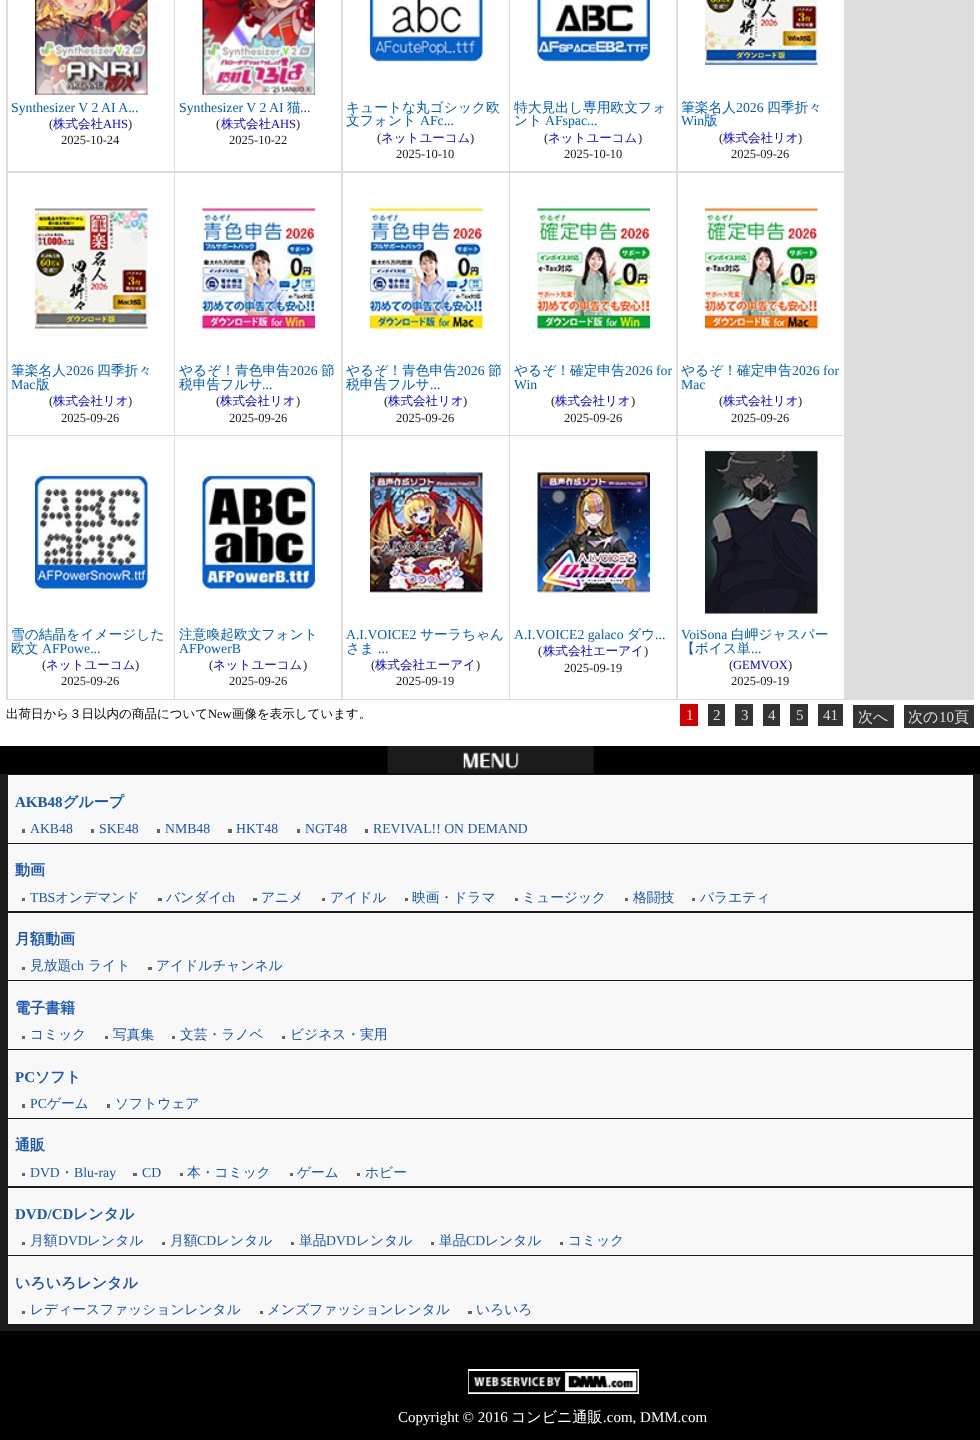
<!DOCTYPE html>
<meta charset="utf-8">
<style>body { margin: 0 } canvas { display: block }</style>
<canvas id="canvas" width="980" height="1440"></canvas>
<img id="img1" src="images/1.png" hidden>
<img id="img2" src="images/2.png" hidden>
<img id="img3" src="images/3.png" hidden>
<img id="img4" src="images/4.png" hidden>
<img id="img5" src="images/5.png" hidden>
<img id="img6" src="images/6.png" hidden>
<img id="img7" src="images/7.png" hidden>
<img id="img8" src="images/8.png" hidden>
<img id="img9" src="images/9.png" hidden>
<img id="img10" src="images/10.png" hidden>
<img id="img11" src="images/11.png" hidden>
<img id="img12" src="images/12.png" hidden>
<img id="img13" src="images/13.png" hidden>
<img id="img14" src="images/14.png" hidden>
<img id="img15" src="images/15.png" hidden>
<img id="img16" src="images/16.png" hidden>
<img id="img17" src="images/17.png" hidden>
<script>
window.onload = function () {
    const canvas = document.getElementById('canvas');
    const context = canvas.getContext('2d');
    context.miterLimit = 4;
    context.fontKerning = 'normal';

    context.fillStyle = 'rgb(255, 255, 255)';
    context.fillRect(0, 0, 980, 1440);
    context.fillStyle = 'rgb(221, 221, 221)';
    context.fillRect(6, 0, 968, 700);
    context.fillStyle = 'rgb(255, 255, 255)';
    context.fillRect(8, 0, 166, 171);
    context.drawImage(document.getElementById('img1'), 35, 0, 113, 95);
    context.fillRect(175, 0, 166, 171);
    context.drawImage(document.getElementById('img2'), 202, 0, 113, 95);
    context.fillRect(343, 0, 166, 171);
    context.drawImage(document.getElementById('img3'), 370, 0, 113, 65);
    context.fillRect(510, 0, 166, 171);
    context.drawImage(document.getElementById('img4'), 537, 0, 113, 65);
    context.fillRect(678, 0, 166, 171);
    context.drawImage(document.getElementById('img5'), 705, 0, 113, 65);
    context.fillRect(8, 173, 166, 262);
    context.drawImage(document.getElementById('img6'), 35, 208, 113, 121);
    context.fillRect(175, 173, 166, 262);
    context.drawImage(document.getElementById('img7'), 202, 208, 113, 121);
    context.fillRect(343, 173, 166, 262);
    context.drawImage(document.getElementById('img8'), 370, 208, 113, 121);
    context.fillRect(510, 173, 166, 262);
    context.drawImage(document.getElementById('img9'), 537, 208, 113, 121);
    context.fillRect(678, 173, 166, 262);
    context.drawImage(document.getElementById('img10'), 705, 208, 113, 121);
    context.fillRect(8, 436, 166, 263);
    context.drawImage(document.getElementById('img11'), 35, 472, 113, 120);
    context.fillRect(175, 436, 166, 263);
    context.drawImage(document.getElementById('img12'), 202, 472, 113, 120);
    context.fillRect(343, 436, 166, 263);
    context.drawImage(document.getElementById('img13'), 370, 472, 113, 121);
    context.fillRect(510, 436, 166, 263);
    context.drawImage(document.getElementById('img14'), 537, 472, 113, 121);
    context.fillRect(678, 436, 166, 263);
    context.drawImage(document.getElementById('img15'), 705, 449, 113, 165);
    context.fillStyle = 'rgb(204, 0, 0)';
    context.fillRect(680, 704, 18, 22);
    context.fillStyle = 'rgb(51, 51, 51)';
    context.fillRect(708, 704, 17, 22);
    context.fillRect(735, 704, 18, 22);
    context.fillRect(763, 704, 17, 22);
    context.fillRect(790, 704, 18, 22);
    context.fillRect(818, 704, 25, 22);
    context.fillRect(853, 705, 41, 23);
    context.fillRect(904, 705, 70, 23);
    context.fillStyle = 'rgb(0, 0, 0)';
    context.fillRect(0, 746, 980, 28);
    context.drawImage(document.getElementById('img16'), 387, 746, 207, 28);
    context.fillStyle = 'rgb(27, 27, 27)';
    context.fillRect(0, 774, 980, 557);
    context.fillStyle = 'rgb(248, 248, 248)';
    context.fillRect(8, 775, 965, 68);
    context.fillStyle = 'rgb(102, 102, 102)';
    context.fillRect(22, 829, 3, 4);
    context.fillRect(91, 829, 3, 4);
    context.fillRect(157, 829, 3, 4);
    context.fillRect(228, 829, 4, 4);
    context.fillRect(297, 829, 3, 4);
    context.fillRect(365, 829, 3, 4);
    context.fillStyle = 'rgb(248, 248, 248)';
    context.fillRect(8, 844, 965, 67);
    context.fillStyle = 'rgb(102, 102, 102)';
    context.fillRect(22, 898, 3, 3);
    context.fillRect(158, 898, 4, 3);
    context.fillRect(253, 898, 4, 3);
    context.fillRect(322, 898, 3, 3);
    context.fillRect(405, 898, 3, 3);
    context.fillRect(515, 898, 3, 3);
    context.fillRect(625, 898, 3, 3);
    context.fillRect(692, 898, 3, 3);
    context.fillStyle = 'rgb(248, 248, 248)';
    context.fillRect(8, 913, 965, 67);
    context.fillStyle = 'rgb(102, 102, 102)';
    context.fillRect(22, 967, 3, 3);
    context.fillRect(148, 967, 4, 3);
    context.fillStyle = 'rgb(248, 248, 248)';
    context.fillRect(8, 981, 965, 68);
    context.fillStyle = 'rgb(102, 102, 102)';
    context.fillRect(22, 1036, 3, 3);
    context.fillRect(105, 1036, 3, 3);
    context.fillRect(172, 1036, 3, 3);
    context.fillRect(282, 1036, 3, 3);
    context.fillStyle = 'rgb(248, 248, 248)';
    context.fillRect(8, 1050, 965, 68);
    context.fillStyle = 'rgb(102, 102, 102)';
    context.fillRect(22, 1104, 3, 4);
    context.fillRect(107, 1104, 3, 4);
    context.fillStyle = 'rgb(248, 248, 248)';
    context.fillRect(8, 1119, 965, 67);
    context.fillStyle = 'rgb(102, 102, 102)';
    context.fillRect(22, 1173, 3, 3);
    context.fillRect(133, 1173, 4, 3);
    context.fillRect(180, 1173, 3, 3);
    context.fillRect(290, 1173, 3, 3);
    context.fillRect(357, 1173, 3, 3);
    context.fillStyle = 'rgb(248, 248, 248)';
    context.fillRect(8, 1188, 965, 67);
    context.fillStyle = 'rgb(102, 102, 102)';
    context.fillRect(22, 1242, 3, 3);
    context.fillRect(162, 1242, 3, 3);
    context.fillRect(291, 1242, 3, 3);
    context.fillRect(431, 1242, 3, 3);
    context.fillRect(560, 1242, 3, 3);
    context.fillStyle = 'rgb(248, 248, 248)';
    context.fillRect(8, 1256, 965, 68);
    context.fillStyle = 'rgb(102, 102, 102)';
    context.fillRect(22, 1311, 3, 3);
    context.fillRect(260, 1311, 3, 3);
    context.fillRect(468, 1311, 4, 3);
    context.fillStyle = 'rgb(0, 0, 0)';
    context.fillRect(0, 1331, 980, 109);
    context.fillStyle = 'rgb(255, 255, 255)';
    context.fillRect(468, 1369, 171, 25);
    context.drawImage(document.getElementById('img17'), 468, 1371, 170, 22);
    context.font = '13.75px Liberation Serif';
    context.fillStyle = 'rgb(0, 95, 192)';
    context.fillText('Synthesizer V 2 AI A...', 11, 112);
    context.font = '12.5px Liberation Serif';
    context.fillStyle = 'rgb(27, 27, 27)';
    context.fillText('(', 49, 128);
    context.font = '500 12.5px WenQuanYi Zen Hei';
    context.fillStyle = 'rgb(0, 0, 238)';
    context.fillText('株式会社', 53, 128);
    context.font = '12.5px Liberation Serif';
    context.fillText('AHS', 103, 128);
    context.fillStyle = 'rgb(27, 27, 27)';
    context.fillText(')', 128, 128);
    context.fillText('2025-10-24', 61, 144);
    context.font = '13.75px Liberation Serif';
    context.fillStyle = 'rgb(0, 95, 192)';
    context.fillText('Synthesizer V 2 AI', 179, 112);
    context.font = '500 13.75px WenQuanYi Zen Hei';
    context.fillText('猫', 287, 112);
    context.font = '13.75px Liberation Serif';
    context.fillText('...', 300, 112);
    context.font = '12.5px Liberation Serif';
    context.fillStyle = 'rgb(27, 27, 27)';
    context.fillText('(', 216, 128);
    context.font = '500 12.5px WenQuanYi Zen Hei';
    context.fillStyle = 'rgb(0, 0, 238)';
    context.fillText('株式会社', 221, 128);
    context.font = '12.5px Liberation Serif';
    context.fillText('AHS', 271, 128);
    context.fillStyle = 'rgb(27, 27, 27)';
    context.fillText(')', 296, 128);
    context.fillText('2025-10-22', 229, 144);
    context.font = '500 13.75px WenQuanYi Zen Hei';
    context.fillStyle = 'rgb(0, 95, 192)';
    context.fillText('キュートな丸ゴシック欧', 346, 112);
    context.fillText('文フォント', 346, 125);
    context.font = '13.75px Liberation Serif';
    context.fillText('AFc...', 420, 125);
    context.font = '12.5px Liberation Serif';
    context.fillStyle = 'rgb(27, 27, 27)';
    context.fillText('(', 377, 142);
    context.font = '500 12.5px WenQuanYi Zen Hei';
    context.fillStyle = 'rgb(0, 0, 238)';
    context.fillText('ネットユーコム', 381, 142);
    context.font = '12.5px Liberation Serif';
    context.fillStyle = 'rgb(27, 27, 27)';
    context.fillText(')', 470, 142);
    context.fillText('2025-10-10', 396, 158);
    context.font = '500 13.75px WenQuanYi Zen Hei';
    context.fillStyle = 'rgb(0, 95, 192)';
    context.fillText('特大見出し専用欧文フォ', 514, 112);
    context.fillText('ント', 514, 125);
    context.font = '13.75px Liberation Serif';
    context.fillText('AFspac...', 545, 125);
    context.font = '12.5px Liberation Serif';
    context.fillStyle = 'rgb(27, 27, 27)';
    context.fillText('(', 544, 142);
    context.font = '500 12.5px WenQuanYi Zen Hei';
    context.fillStyle = 'rgb(0, 0, 238)';
    context.fillText('ネットユーコム', 548, 142);
    context.font = '12.5px Liberation Serif';
    context.fillStyle = 'rgb(27, 27, 27)';
    context.fillText(')', 638, 142);
    context.fillText('2025-10-10', 564, 158);
    context.font = '500 13.75px WenQuanYi Zen Hei';
    context.fillStyle = 'rgb(0, 95, 192)';
    context.fillText('筆楽名人', 681, 112);
    context.font = '13.75px Liberation Serif';
    context.fillText('2026', 736, 112);
    context.font = '500 13.75px WenQuanYi Zen Hei';
    context.fillText('四季折々', 767, 112);
    context.font = '13.75px Liberation Serif';
    context.fillText('Win', 681, 125);
    context.font = '500 13.75px WenQuanYi Zen Hei';
    context.fillText('版', 704, 125);
    context.font = '12.5px Liberation Serif';
    context.fillStyle = 'rgb(27, 27, 27)';
    context.fillText('(', 719, 142);
    context.font = '500 12.5px WenQuanYi Zen Hei';
    context.fillStyle = 'rgb(0, 0, 238)';
    context.fillText('株式会社リオ', 723, 142);
    context.font = '12.5px Liberation Serif';
    context.fillStyle = 'rgb(27, 27, 27)';
    context.fillText(')', 798, 142);
    context.fillText('2025-09-26', 731, 158);
    context.font = '500 13.75px WenQuanYi Zen Hei';
    context.fillStyle = 'rgb(0, 95, 192)';
    context.fillText('筆楽名人', 11, 375);
    context.font = '13.75px Liberation Serif';
    context.fillText('2026', 66, 375);
    context.font = '500 13.75px WenQuanYi Zen Hei';
    context.fillText('四季折々', 97, 375);
    context.font = '13.75px Liberation Serif';
    context.fillText('Mac', 11, 389);
    context.font = '500 13.75px WenQuanYi Zen Hei';
    context.fillText('版', 36, 389);
    context.font = '12.5px Liberation Serif';
    context.fillStyle = 'rgb(27, 27, 27)';
    context.fillText('(', 49, 405);
    context.font = '500 12.5px WenQuanYi Zen Hei';
    context.fillStyle = 'rgb(0, 0, 238)';
    context.fillText('株式会社リオ', 53, 405);
    context.font = '12.5px Liberation Serif';
    context.fillStyle = 'rgb(27, 27, 27)';
    context.fillText(')', 128, 405);
    context.fillText('2025-09-26', 61, 422);
    context.font = '500 13.75px WenQuanYi Zen Hei';
    context.fillStyle = 'rgb(0, 95, 192)';
    context.fillText('やるぞ！青色申告', 179, 375);
    context.font = '13.75px Liberation Serif';
    context.fillText('2026', 290, 375);
    context.font = '500 13.75px WenQuanYi Zen Hei';
    context.fillText('節', 321, 375);
    context.fillText('税申告フルサ', 179, 389);
    context.font = '13.75px Liberation Serif';
    context.fillText('...', 262, 389);
    context.font = '12.5px Liberation Serif';
    context.fillStyle = 'rgb(27, 27, 27)';
    context.fillText('(', 216, 405);
    context.font = '500 12.5px WenQuanYi Zen Hei';
    context.fillStyle = 'rgb(0, 0, 238)';
    context.fillText('株式会社リオ', 220, 405);
    context.font = '12.5px Liberation Serif';
    context.fillStyle = 'rgb(27, 27, 27)';
    context.fillText(')', 296, 405);
    context.fillText('2025-09-26', 229, 422);
    context.font = '500 13.75px WenQuanYi Zen Hei';
    context.fillStyle = 'rgb(0, 95, 192)';
    context.fillText('やるぞ！青色申告', 346, 375);
    context.font = '13.75px Liberation Serif';
    context.fillText('2026', 457, 375);
    context.font = '500 13.75px WenQuanYi Zen Hei';
    context.fillText('節', 488, 375);
    context.fillText('税申告フルサ', 346, 389);
    context.font = '13.75px Liberation Serif';
    context.fillText('...', 430, 389);
    context.font = '12.5px Liberation Serif';
    context.fillStyle = 'rgb(27, 27, 27)';
    context.fillText('(', 384, 405);
    context.font = '500 12.5px WenQuanYi Zen Hei';
    context.fillStyle = 'rgb(0, 0, 238)';
    context.fillText('株式会社リオ', 388, 405);
    context.font = '12.5px Liberation Serif';
    context.fillStyle = 'rgb(27, 27, 27)';
    context.fillText(')', 463, 405);
    context.fillText('2025-09-26', 396, 422);
    context.font = '500 13.75px WenQuanYi Zen Hei';
    context.fillStyle = 'rgb(0, 95, 192)';
    context.fillText('やるぞ！確定申告', 514, 375);
    context.font = '13.75px Liberation Serif';
    context.fillText('2026 for', 625, 375);
    context.fillText('Win', 514, 389);
    context.font = '12.5px Liberation Serif';
    context.fillStyle = 'rgb(27, 27, 27)';
    context.fillText('(', 551, 405);
    context.font = '500 12.5px WenQuanYi Zen Hei';
    context.fillStyle = 'rgb(0, 0, 238)';
    context.fillText('株式会社リオ', 555, 405);
    context.font = '12.5px Liberation Serif';
    context.fillStyle = 'rgb(27, 27, 27)';
    context.fillText(')', 631, 405);
    context.fillText('2025-09-26', 564, 422);
    context.font = '500 13.75px WenQuanYi Zen Hei';
    context.fillStyle = 'rgb(0, 95, 192)';
    context.fillText('やるぞ！確定申告', 681, 375);
    context.font = '13.75px Liberation Serif';
    context.fillText('2026 for', 792, 375);
    context.fillText('Mac', 681, 389);
    context.font = '12.5px Liberation Serif';
    context.fillStyle = 'rgb(27, 27, 27)';
    context.fillText('(', 719, 405);
    context.font = '500 12.5px WenQuanYi Zen Hei';
    context.fillStyle = 'rgb(0, 0, 238)';
    context.fillText('株式会社リオ', 723, 405);
    context.font = '12.5px Liberation Serif';
    context.fillStyle = 'rgb(27, 27, 27)';
    context.fillText(')', 798, 405);
    context.fillText('2025-09-26', 731, 422);
    context.font = '500 13.75px WenQuanYi Zen Hei';
    context.fillStyle = 'rgb(0, 95, 192)';
    context.fillText('雪の結晶をイメージした', 11, 639);
    context.fillText('欧文', 11, 653);
    context.font = '13.75px Liberation Serif';
    context.fillText('AFPowe...', 42, 653);
    context.font = '12.5px Liberation Serif';
    context.fillStyle = 'rgb(27, 27, 27)';
    context.fillText('(', 42, 669);
    context.font = '500 12.5px WenQuanYi Zen Hei';
    context.fillStyle = 'rgb(0, 0, 238)';
    context.fillText('ネットユーコム', 46, 669);
    context.font = '12.5px Liberation Serif';
    context.fillStyle = 'rgb(27, 27, 27)';
    context.fillText(')', 135, 669);
    context.fillText('2025-09-26', 61, 685);
    context.font = '500 13.75px WenQuanYi Zen Hei';
    context.fillStyle = 'rgb(0, 95, 192)';
    context.fillText('注意喚起欧文フォント', 179, 639);
    context.font = '13.75px Liberation Serif';
    context.fillText('AFPowerB', 179, 653);
    context.font = '12.5px Liberation Serif';
    context.fillStyle = 'rgb(27, 27, 27)';
    context.fillText('(', 209, 669);
    context.font = '500 12.5px WenQuanYi Zen Hei';
    context.fillStyle = 'rgb(0, 0, 238)';
    context.fillText('ネットユーコム', 213, 669);
    context.font = '12.5px Liberation Serif';
    context.fillStyle = 'rgb(27, 27, 27)';
    context.fillText(')', 303, 669);
    context.fillText('2025-09-26', 229, 685);
    context.font = '13.75px Liberation Serif';
    context.fillStyle = 'rgb(0, 95, 192)';
    context.fillText('A.I.VOICE2', 346, 639);
    context.font = '500 13.75px WenQuanYi Zen Hei';
    context.fillText('サーラちゃん', 420, 639);
    context.fillText('さま', 346, 653);
    context.font = '13.75px Liberation Serif';
    context.fillText('...', 378, 653);
    context.font = '12.5px Liberation Serif';
    context.fillStyle = 'rgb(27, 27, 27)';
    context.fillText('(', 371, 669);
    context.font = '500 12.5px WenQuanYi Zen Hei';
    context.fillStyle = 'rgb(0, 0, 238)';
    context.fillText('株式会社エーアイ', 375, 669);
    context.font = '12.5px Liberation Serif';
    context.fillStyle = 'rgb(27, 27, 27)';
    context.fillText(')', 476, 669);
    context.fillText('2025-09-19', 396, 685);
    context.font = '13.75px Liberation Serif';
    context.fillStyle = 'rgb(0, 95, 192)';
    context.fillText('A.I.VOICE2 galaco', 514, 639);
    context.font = '500 13.75px WenQuanYi Zen Hei';
    context.fillText('ダウ', 627, 639);
    context.font = '13.75px Liberation Serif';
    context.fillText('...', 655, 639);
    context.font = '12.5px Liberation Serif';
    context.fillStyle = 'rgb(27, 27, 27)';
    context.fillText('(', 538, 655);
    context.font = '500 12.5px WenQuanYi Zen Hei';
    context.fillStyle = 'rgb(0, 0, 238)';
    context.fillText('株式会社エーアイ', 543, 655);
    context.font = '12.5px Liberation Serif';
    context.fillStyle = 'rgb(27, 27, 27)';
    context.fillText(')', 644, 655);
    context.fillText('2025-09-19', 564, 672);
    context.font = '13.75px Liberation Serif';
    context.fillStyle = 'rgb(0, 95, 192)';
    context.fillText('VoiSona', 681, 639);
    context.font = '500 13.75px WenQuanYi Zen Hei';
    context.fillText('白岬ジャスパー', 731, 639);
    context.fillText('【ボイス単', 681, 653);
    context.font = '13.75px Liberation Serif';
    context.fillText('...', 751, 653);
    context.font = '12.5px Liberation Serif';
    context.fillStyle = 'rgb(27, 27, 27)';
    context.fillText('(', 729, 669);
    context.fillStyle = 'rgb(0, 0, 238)';
    context.fillText('GEMVOX', 733, 669);
    context.fillStyle = 'rgb(27, 27, 27)';
    context.fillText(')', 788, 669);
    context.fillText('2025-09-19', 731, 685);
    context.font = '500 12.5px WenQuanYi Zen Hei';
    context.fillStyle = 'rgb(0, 0, 0)';
    context.fillText('出荷日から３日以内の商品について', 6, 718);
    context.font = '12.5px Liberation Serif';
    context.fillText('New', 208, 718);
    context.font = '500 12.5px WenQuanYi Zen Hei';
    context.fillText('画像を表示しています。', 232, 718);
    context.font = '15px Liberation Serif';
    context.fillStyle = 'rgb(221, 221, 221)';
    context.fillText('1', 686, 720);
    context.fillText('2', 713, 720);
    context.fillText('3', 741, 720);
    context.fillText('4', 768, 720);
    context.fillText('5', 796, 720);
    context.fillText('41', 823, 720);
    context.font = '500 15px WenQuanYi Zen Hei';
    context.fillText('次へ', 858, 722);
    context.fillText('次の', 908, 722);
    context.font = '15px Liberation Serif';
    context.fillText('10', 939, 722);
    context.font = '500 15px WenQuanYi Zen Hei';
    context.fillText('頁', 954, 722);
    context.font = 'bold 15px Liberation Serif';
    context.fillStyle = 'rgb(26, 85, 179)';
    context.fillText('AKB48', 15, 807);
    context.font = 'bold 15px WenQuanYi Zen Hei';
    context.fillText('グループ', 63, 807);
    context.font = '13.75px Liberation Serif';
    context.fillText('AKB48', 30, 833);
    context.fillText('SKE48', 99, 833);
    context.fillText('NMB48', 165, 833);
    context.fillText('HKT48', 236, 833);
    context.fillText('NGT48', 305, 833);
    context.fillText('REVIVAL!! ON DEMAND', 373, 833);
    context.font = 'bold 15px WenQuanYi Zen Hei';
    context.fillText('動画', 15, 875);
    context.font = '13.75px Liberation Serif';
    context.fillText('TBS', 30, 902);
    context.font = '500 13.75px WenQuanYi Zen Hei';
    context.fillText('オンデマンド', 55, 902);
    context.fillText('バンダイ', 166, 902);
    context.font = '13.75px Liberation Serif';
    context.fillText('ch', 222, 902);
    context.font = '500 13.75px WenQuanYi Zen Hei';
    context.fillText('アニメ', 261, 902);
    context.fillText('アイドル', 330, 902);
    context.fillText('映画・ドラマ', 412, 902);
    context.fillText('ミュージック', 522, 902);
    context.fillText('格闘技', 633, 902);
    context.fillText('バラエティ', 700, 902);
    context.font = 'bold 15px WenQuanYi Zen Hei';
    context.fillText('月額動画', 15, 944);
    context.font = '500 13.75px WenQuanYi Zen Hei';
    context.fillText('見放題', 30, 970);
    context.font = '13.75px Liberation Serif';
    context.fillText('ch', 71, 970);
    context.font = '500 13.75px WenQuanYi Zen Hei';
    context.fillText('ライト', 88, 970);
    context.fillText('アイドルチャンネル', 156, 970);
    context.font = 'bold 15px WenQuanYi Zen Hei';
    context.fillText('電子書籍', 15, 1013);
    context.font = '500 13.75px WenQuanYi Zen Hei';
    context.fillText('コミック', 30, 1039);
    context.fillText('写真集', 113, 1039);
    context.fillText('文芸・ラノベ', 180, 1039);
    context.fillText('ビジネス・実用', 290, 1039);
    context.font = 'bold 15px Liberation Serif';
    context.fillText('PC', 15, 1082);
    context.font = 'bold 15px WenQuanYi Zen Hei';
    context.fillText('ソフト', 35, 1082);
    context.font = '13.75px Liberation Serif';
    context.fillText('PC', 30, 1108);
    context.font = '500 13.75px WenQuanYi Zen Hei';
    context.fillText('ゲーム', 47, 1108);
    context.fillText('ソフトウェア', 115, 1108);
    context.font = 'bold 15px WenQuanYi Zen Hei';
    context.fillText('通販', 15, 1150);
    context.font = '13.75px Liberation Serif';
    context.fillText('DVD', 30, 1177);
    context.font = '500 13.75px WenQuanYi Zen Hei';
    context.fillText('・', 60, 1177);
    context.font = '13.75px Liberation Serif';
    context.fillText('Blu-ray', 74, 1177);
    context.fillText('CD', 142, 1177);
    context.font = '500 13.75px WenQuanYi Zen Hei';
    context.fillText('本・コミック', 187, 1177);
    context.fillText('ゲーム', 297, 1177);
    context.fillText('ホビー', 365, 1177);
    context.font = 'bold 15px Liberation Serif';
    context.fillText('DVD/CD', 15, 1219);
    context.font = 'bold 15px WenQuanYi Zen Hei';
    context.fillText('レンタル', 73, 1219);
    context.font = '500 13.75px WenQuanYi Zen Hei';
    context.fillText('月額', 30, 1245);
    context.font = '13.75px Liberation Serif';
    context.fillText('DVD', 58, 1245);
    context.font = '500 13.75px WenQuanYi Zen Hei';
    context.fillText('レンタル', 87, 1245);
    context.fillText('月額', 170, 1245);
    context.font = '13.75px Liberation Serif';
    context.fillText('CD', 197, 1245);
    context.font = '500 13.75px WenQuanYi Zen Hei';
    context.fillText('レンタル', 216, 1245);
    context.fillText('単品', 299, 1245);
    context.font = '13.75px Liberation Serif';
    context.fillText('DVD', 326, 1245);
    context.font = '500 13.75px WenQuanYi Zen Hei';
    context.fillText('レンタル', 356, 1245);
    context.fillText('単品', 439, 1245);
    context.font = '13.75px Liberation Serif';
    context.fillText('CD', 466, 1245);
    context.font = '500 13.75px WenQuanYi Zen Hei';
    context.fillText('レンタル', 485, 1245);
    context.fillText('コミック', 568, 1245);
    context.font = 'bold 15px WenQuanYi Zen Hei';
    context.fillText('いろいろレンタル', 15, 1288);
    context.font = '500 13.75px WenQuanYi Zen Hei';
    context.fillText('レディースファッションレンタル', 30, 1314);
    context.fillText('メンズファッションレンタル', 267, 1314);
    context.fillText('いろいろ', 476, 1314);
    context.font = '15px Liberation Serif';
    context.fillStyle = 'rgb(255, 255, 255)';
    context.fillText('Copyright © 2016', 398, 1422);
    context.font = '500 15px WenQuanYi Zen Hei';
    context.fillText('コンビニ通販', 511, 1422);
    context.font = '15px Liberation Serif';
    context.fillText('.com, DMM.com', 603, 1422);
};
</script>
